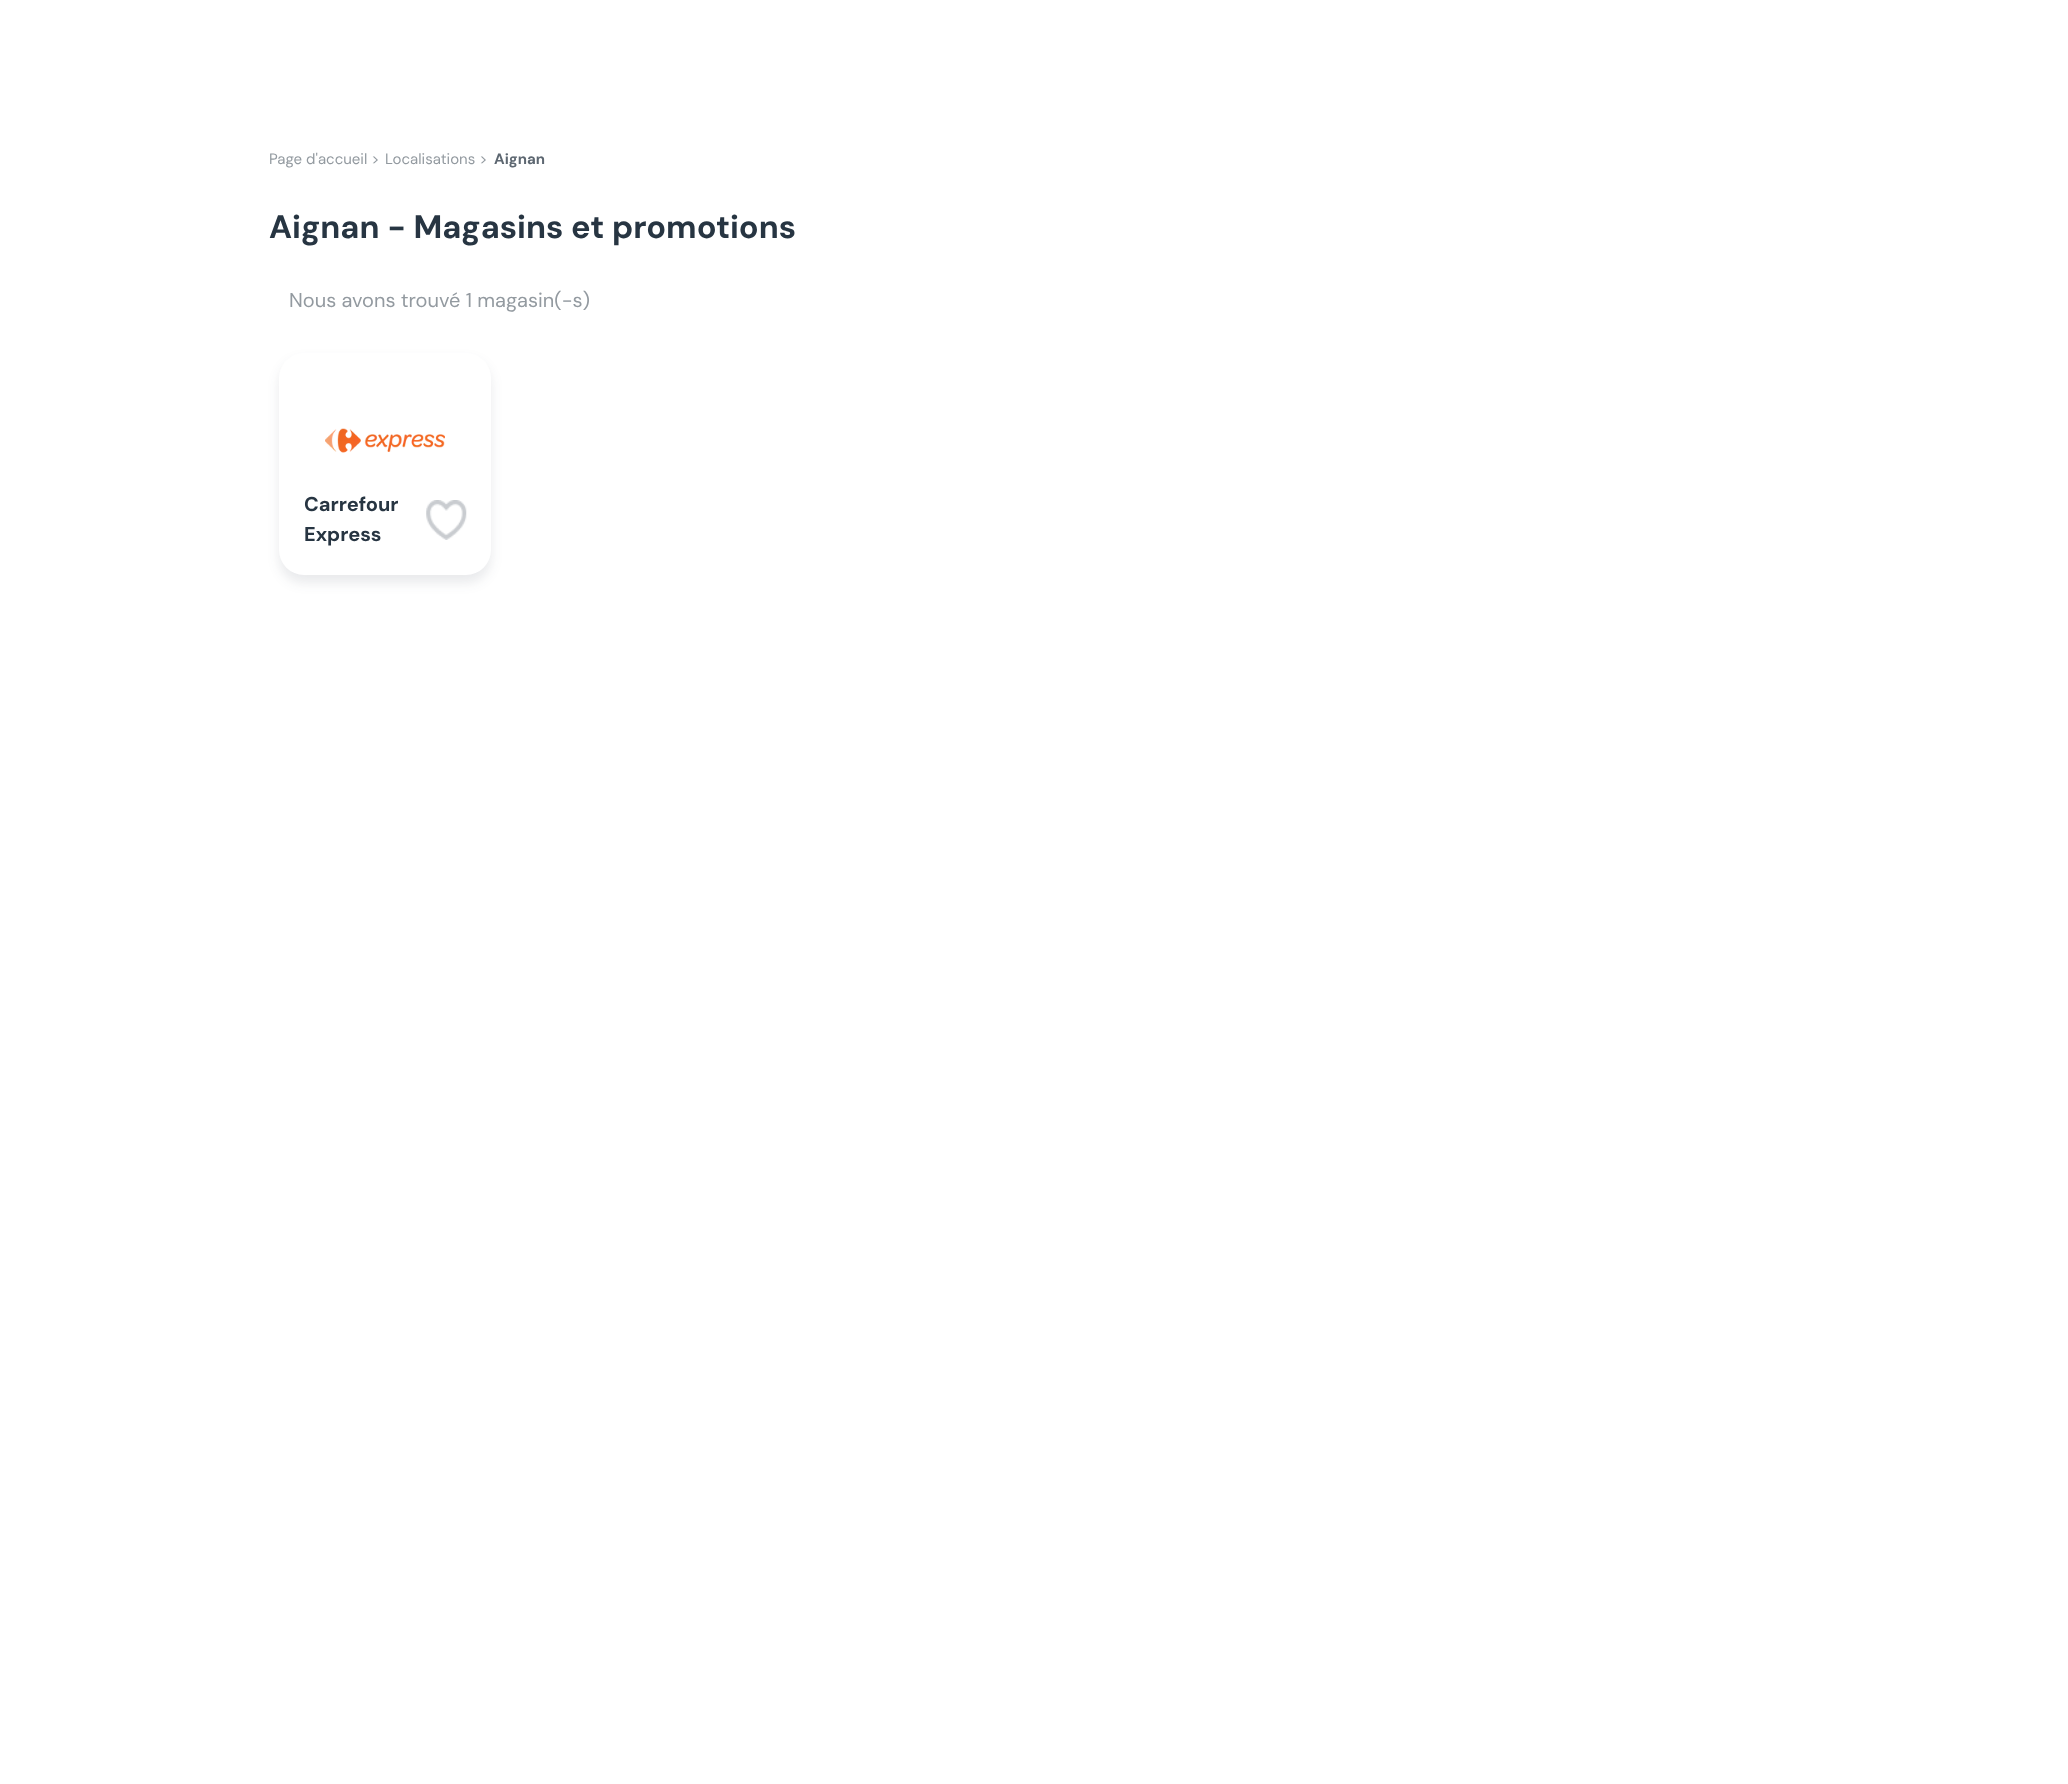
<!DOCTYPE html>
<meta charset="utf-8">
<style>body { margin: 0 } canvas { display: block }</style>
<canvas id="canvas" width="2068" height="1784"></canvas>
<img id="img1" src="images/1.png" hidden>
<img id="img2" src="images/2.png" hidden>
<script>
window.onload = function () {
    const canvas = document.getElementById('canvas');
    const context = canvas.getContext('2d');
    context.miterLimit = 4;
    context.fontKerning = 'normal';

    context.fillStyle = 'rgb(255, 255, 255)';
    context.fillRect(0, 0, 2068, 1784);
    context.fillStyle = 'rgba(39, 53, 66, 0.1)';
    context.filter = 'blur(6px)';
    context.beginPath();
    context.roundRect(279, 360, 212, 223, 25);
    context.fill();
    context.filter = 'none';
    context.fillStyle = 'rgb(255, 255, 255)';
    context.beginPath();
    context.roundRect(279, 353, 212, 222, 25);
    context.fill();
    context.drawImage(document.getElementById('img1'), 325, 428, 120, 25);
    context.drawImage(document.getElementById('img2'), 426, 500, 41, 40);
    context.font = '15px DM Sans';
    context.fillStyle = 'rgb(147, 154, 160)';
    context.fillText('Page d\'accueil >', 269, 164);
    context.fillText('Localisations >', 385, 164);
    context.font = 'bold 15px DM Sans';
    context.fillStyle = 'rgb(93, 103, 113)';
    context.fillText('Aignan', 494, 164);
    context.font = 'bold 32.5px DM Sans';
    context.fillStyle = 'rgb(39, 53, 66)';
    context.fillText('Aignan - Magasins et promotions', 269, 238);
    context.font = '20px DM Sans';
    context.fillStyle = 'rgb(147, 154, 160)';
    context.fillText('Nous avons trouvé 1 magasin(-s)', 289, 307);
    context.font = 'bold 20px DM Sans';
    context.fillStyle = 'rgb(39, 53, 66)';
    context.fillText('Carrefour', 304, 511);
    context.fillText('Express', 304, 541);
};
</script>
